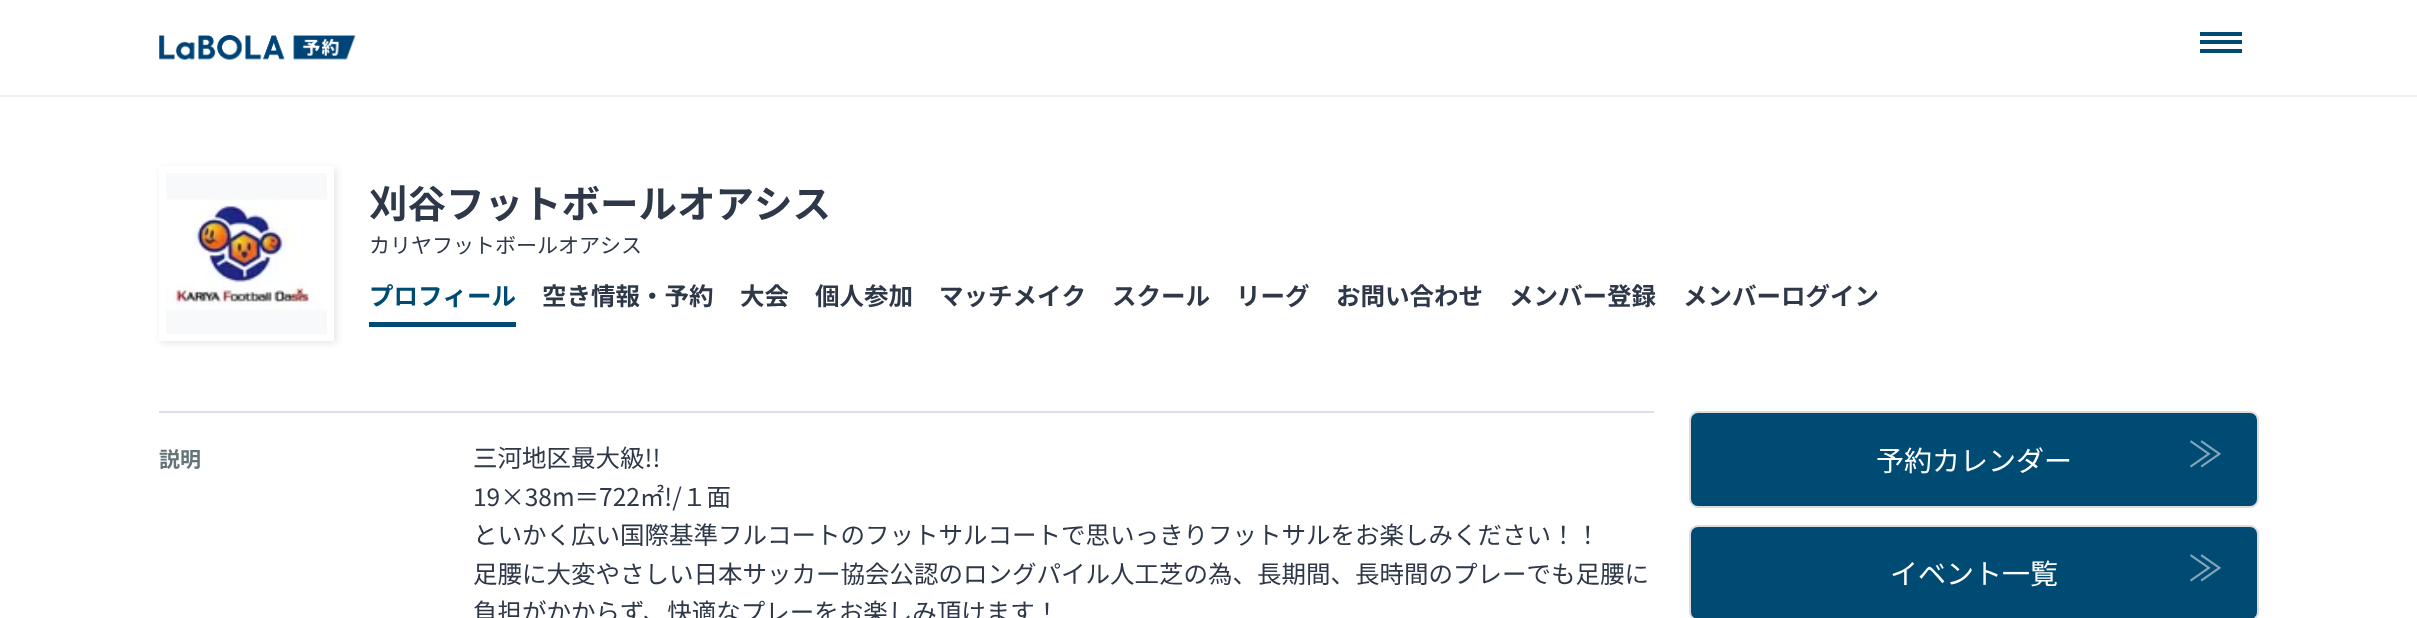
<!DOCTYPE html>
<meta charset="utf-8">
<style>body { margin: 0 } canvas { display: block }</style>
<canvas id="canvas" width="2417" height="618"></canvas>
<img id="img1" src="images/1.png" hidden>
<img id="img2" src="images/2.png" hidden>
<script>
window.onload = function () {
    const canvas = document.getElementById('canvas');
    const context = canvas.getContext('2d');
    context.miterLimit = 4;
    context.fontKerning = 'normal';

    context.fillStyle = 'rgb(255, 255, 255)';
    context.fillRect(0, 0, 2417, 618);
    context.fillStyle = 'rgb(235, 241, 244)';
    context.fillRect(0, 95, 2417, 2);
    context.drawImage(document.getElementById('img1'), 159, 35, 197, 25);
    context.fillStyle = 'rgb(0, 75, 115)';
    context.fillRect(2200, 40, 42, 4);
    context.fillRect(2200, 32, 42, 4);
    context.fillRect(2200, 49, 42, 4);
    context.fillStyle = 'rgba(0, 0, 0, 0.1)';
    context.filter = 'blur(3.5px)';
    context.beginPath();
    context.rect(161, 168, 175, 175);
    context.fill();
    context.filter = 'none';
    context.fillStyle = 'rgb(247, 249, 251)';
    context.fillRect(166, 173, 161, 161);
    context.drawImage(document.getElementById('img2'), 166, 199, 161, 111);
    context.strokeStyle = 'rgb(255, 255, 255)';
    context.lineWidth = 7;
    context.strokeRect(162.5, 169.5, 168, 168);
    context.fillStyle = 'rgb(0, 75, 115)';
    context.fillRect(369, 322, 147, 5);
    context.fillStyle = 'rgb(220, 225, 233)';
    context.fillRect(159, 411, 1495, 2);
    context.fillStyle = 'rgb(0, 75, 115)';
    context.beginPath();
    context.roundRect(1690, 412, 568, 95, 8);
    context.fill();
    context.strokeStyle = 'rgb(221, 221, 221)';
    context.lineWidth = 2;
    context.stroke();
    context.beginPath();
    context.roundRect(1690, 526, 568, 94, 8);
    context.fill();
    context.stroke();
    context.font = 'bold 38.5px Noto Sans JP';
    context.fillStyle = 'rgb(46, 56, 73)';
    context.fillText('刈谷フットボールオアシス', 369, 218);
    context.font = '21px Noto Sans JP';
    context.fillText('カリヤフットボールオアシス', 369, 253);
    context.font = 'bold 24.5px Noto Sans JP';
    context.fillStyle = 'rgb(0, 75, 115)';
    context.fillText('プロフィール', 369, 305);
    context.fillStyle = 'rgb(46, 56, 73)';
    context.fillText('空き情報・予約', 542, 305);
    context.fillText('大会', 740, 305);
    context.fillText('個人参加', 815, 305);
    context.fillText('マッチメイク', 939, 305);
    context.fillText('スクール', 1112, 305);
    context.fillText('リーグ', 1236, 305);
    context.fillText('お問い合わせ', 1336, 305);
    context.fillText('メンバー登録', 1509, 305);
    context.fillText('メンバーログイン', 1683, 305);
    context.font = 'bold 21px Noto Sans JP';
    context.fillStyle = 'rgb(100, 116, 121)';
    context.fillText('説明', 159, 467);
    context.font = '24.5px Noto Sans JP';
    context.fillStyle = 'rgb(46, 56, 73)';
    context.fillText('三河地区最大級!!', 473, 467);
    context.fillText('19×38m＝722㎡!/１面', 473, 506);
    context.fillText('といかく広い国際基準フルコートのフットサルコートで思いっきりフットサルをお楽しみください！！', 473, 544);
    context.fillText('足腰に大変やさしい日本サッカー協会公認のロングパイル人工芝の為、長期間、長時間のプレーでも足腰に', 473, 583);
    context.fillText('負担がかからず、快適なプレーをお楽しみ頂けます！', 473, 621);
    context.font = '28px Noto Sans JP';
    context.fillStyle = 'rgb(255, 255, 255)';
    context.fillText('予約カレンダー', 1876, 471);
    context.font = '35px Noto Sans JP';
    context.fillStyle = 'rgb(128, 165, 185)';
    context.fillText('≫', 2188, 467);
    context.font = '28px Noto Sans JP';
    context.fillStyle = 'rgb(255, 255, 255)';
    context.fillText('イベント一覧', 1890, 584);
    context.font = '35px Noto Sans JP';
    context.fillStyle = 'rgb(128, 165, 185)';
    context.fillText('≫', 2188, 581);
};
</script>
